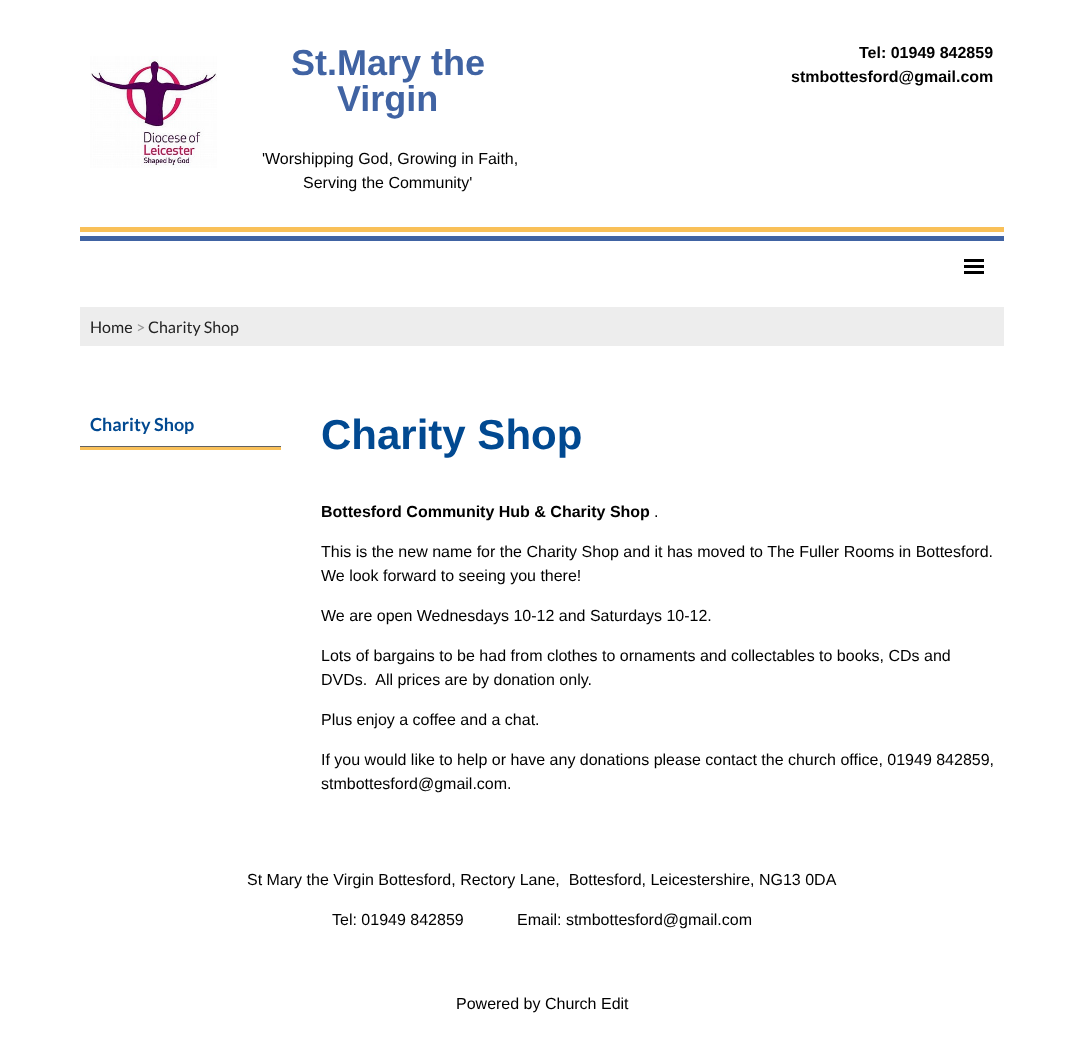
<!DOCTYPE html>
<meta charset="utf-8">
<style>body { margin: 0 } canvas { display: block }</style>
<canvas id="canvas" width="1084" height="1052"></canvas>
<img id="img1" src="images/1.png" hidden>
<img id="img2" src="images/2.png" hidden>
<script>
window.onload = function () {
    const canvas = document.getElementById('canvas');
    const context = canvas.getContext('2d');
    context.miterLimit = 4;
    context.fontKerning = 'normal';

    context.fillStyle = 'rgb(255, 255, 255)';
    context.fillRect(0, 0, 1084, 1052);
    context.drawImage(document.getElementById('img1'), 90, 56, 127, 112);
    context.drawImage(document.getElementById('img2'), 80, 227, 924, 14);
    context.fillStyle = 'rgb(0, 0, 0)';
    context.fillRect(964, 259, 20, 3);
    context.fillRect(964, 265, 20, 3);
    context.fillRect(964, 271, 20, 3);
    context.fillStyle = 'rgb(237, 237, 237)';
    context.fillRect(80, 307, 924, 39);
    context.fillStyle = 'rgb(249, 192, 89)';
    context.fillRect(80, 447, 201, 3);
    context.fillStyle = 'rgb(98, 98, 98)';
    context.fillRect(80, 446, 201, 1);
    context.font = 'bold 36px Liberation Sans';
    context.fillStyle = 'rgb(64, 99, 163)';
    context.fillText('St.Mary the', 291, 75);
    context.fillText('Virgin', 337, 111);
    context.font = '16px Liberation Sans';
    context.fillStyle = 'rgb(0, 0, 0)';
    context.fillText('\'Worshipping God, Growing in Faith,', 262, 164);
    context.fillText('Serving the Community\'', 303, 188);
    context.font = 'bold 16px Liberation Sans';
    context.fillText('Tel: 01949 842859', 859, 58);
    context.fillText('stmbottesford@gmail.com', 791, 82);
    context.font = '16px Lato';
    context.fillStyle = 'rgb(34, 34, 34)';
    context.fillText('Home', 90, 333);
    context.fillStyle = 'rgb(153, 153, 153)';
    context.fillText('>', 136, 333);
    context.fillStyle = 'rgb(34, 34, 34)';
    context.fillText('Charity Shop', 148, 333);
    context.font = 'bold 18px Lato';
    context.fillStyle = 'rgb(1, 73, 145)';
    context.fillText('Charity Shop', 90, 431);
    context.font = 'bold 42px Liberation Sans';
    context.fillText('Charity Shop', 321, 449);
    context.font = 'bold 16px Liberation Sans';
    context.fillStyle = 'rgb(0, 0, 0)';
    context.fillText('Bottesford Community Hub & Charity Shop', 321, 517);
    context.font = '16px Liberation Sans';
    context.fillText('.', 654, 517);
    context.fillText('This is the new name for the Charity Shop and it has moved to The Fuller Rooms in Bottesford.', 321, 557);
    context.fillText('We look forward to seeing you there!', 321, 581);
    context.fillText('We are open Wednesdays 10-12 and Saturdays 10-12.', 321, 621);
    context.fillText('Lots of bargains to be had from clothes to ornaments and collectables to books, CDs and', 321, 661);
    context.fillText('DVDs.  All prices are by donation only.', 321, 685);
    context.fillText('Plus enjoy a coffee and a chat.', 321, 725);
    context.fillText('If you would like to help or have any donations please contact the church office, 01949 842859,', 321, 765);
    context.fillText('stmbottesford@gmail.com.', 321, 789);
    context.fillText('St Mary the Virgin Bottesford, Rectory Lane,  Bottesford, Leicestershire, NG13 0DA', 247, 885);
    context.fillText('Tel: 01949 842859            Email: stmbottesford@gmail.com', 332, 925);
    context.fillText('Powered by Church Edit', 456, 1009);
};
</script>
